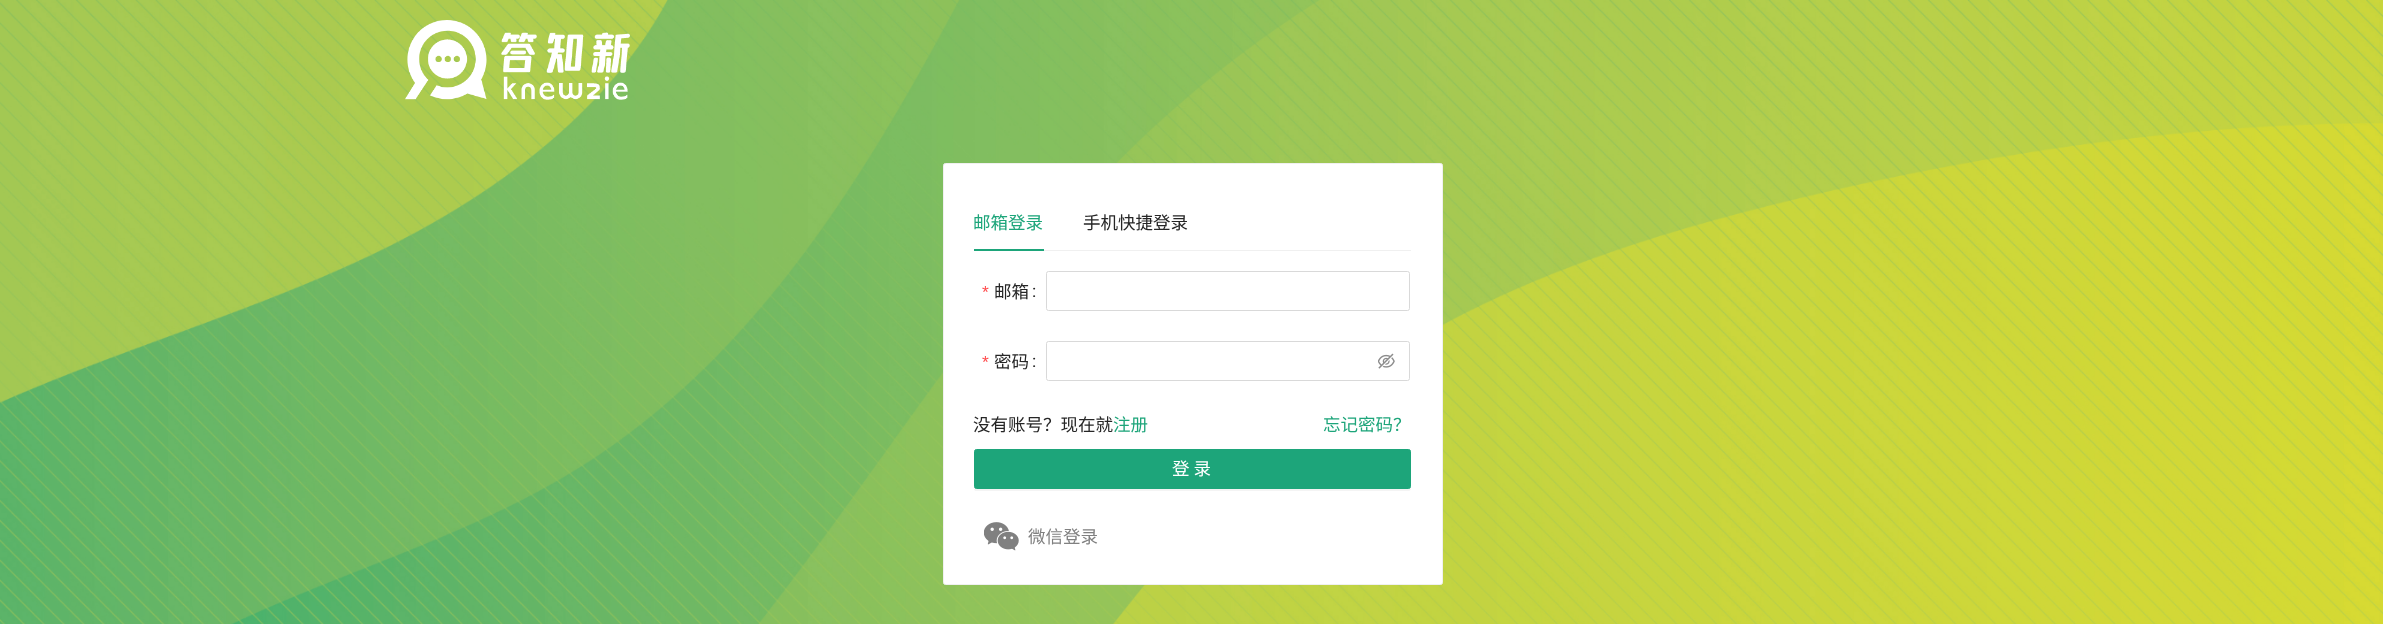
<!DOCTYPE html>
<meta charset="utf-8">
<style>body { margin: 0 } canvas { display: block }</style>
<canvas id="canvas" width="2383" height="624"></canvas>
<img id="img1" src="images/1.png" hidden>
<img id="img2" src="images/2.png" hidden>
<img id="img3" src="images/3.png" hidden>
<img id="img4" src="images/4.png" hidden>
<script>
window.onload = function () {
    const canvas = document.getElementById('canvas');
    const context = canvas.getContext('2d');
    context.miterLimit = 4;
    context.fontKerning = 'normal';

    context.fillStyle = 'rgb(255, 255, 255)';
    context.fillRect(0, 0, 2383, 624);
    context.drawImage(document.getElementById('img1'), 0, 0, 2383, 624);
    context.drawImage(document.getElementById('img2'), 405, 20, 225, 80);
    context.beginPath();
    context.roundRect(943.5, 163.5, 499, 421, 2);
    context.fill();
    context.strokeStyle = 'rgb(240, 240, 240)';
    context.stroke();
    context.fillStyle = 'rgb(29, 165, 122)';
    context.fillRect(974, 249, 70, 2);
    context.fillStyle = 'rgb(240, 240, 240)';
    context.fillRect(1044, 250, 367, 1);
    context.beginPath();
    context.roundRect(1046.5, 271.5, 363, 39, 2);
    context.strokeStyle = 'rgb(217, 217, 217)';
    context.stroke();
    context.beginPath();
    context.roundRect(1046.5, 341.5, 363, 39, 2);
    context.stroke();
    context.drawImage(document.getElementById('img3'), 1378, 353, 17, 16);
    context.fillStyle = 'rgb(244, 244, 244)';
    context.beginPath();
    context.moveTo(974, 487);
    context.bezierCurveTo(974, 489, 974, 491, 976, 491);
    context.lineTo(1408, 491);
    context.bezierCurveTo(1411, 491, 1411, 489, 1411, 487);
    context.lineTo(1410, 489);
    context.lineTo(976, 489);
    context.bezierCurveTo(975, 489, 974, 488, 974, 487);
    context.closePath();
    context.fill();
    context.fillStyle = 'rgb(29, 165, 122)';
    context.beginPath();
    context.roundRect(974.5, 449.5, 436, 39, 2);
    context.fill();
    context.strokeStyle = 'rgb(29, 165, 122)';
    context.stroke();
    context.drawImage(document.getElementById('img4'), 984, 522, 35, 29);
    context.font = '17.5px Noto Sans CJK SC';
    context.fillText('邮箱登录', 973, 229);
    context.fillStyle = 'rgb(38, 38, 38)';
    context.fillText('手机快捷登录', 1083, 229);
    context.font = '17.5px Liberation Sans';
    context.fillStyle = 'rgb(255, 77, 79)';
    context.fillText('*', 982, 298);
    context.font = '17.5px Noto Sans CJK SC';
    context.fillStyle = 'rgb(38, 38, 38)';
    context.fillText('邮箱', 994, 298);
    context.font = '17.5px Roboto';
    context.fillText(':', 1032, 297);
    context.font = '17.5px Liberation Sans';
    context.fillStyle = 'rgb(255, 77, 79)';
    context.fillText('*', 982, 368);
    context.font = '17.5px Noto Sans CJK SC';
    context.fillStyle = 'rgb(38, 38, 38)';
    context.fillText('密码', 994, 368);
    context.font = '17.5px Roboto';
    context.fillText(':', 1032, 367);
    context.font = '17.5px Noto Sans CJK SC';
    context.fillText('没有账号？现在就', 973, 431);
    context.fillStyle = 'rgb(29, 165, 122)';
    context.fillText('注册', 1113, 431);
    context.fillText('忘记密码？', 1323, 431);
    context.fillStyle = 'rgb(255, 255, 255)';
    context.fillText('登 录', 1172, 475);
    context.fillStyle = 'rgb(128, 128, 128)';
    context.fillText('微信登录', 1028, 543);
};
</script>
